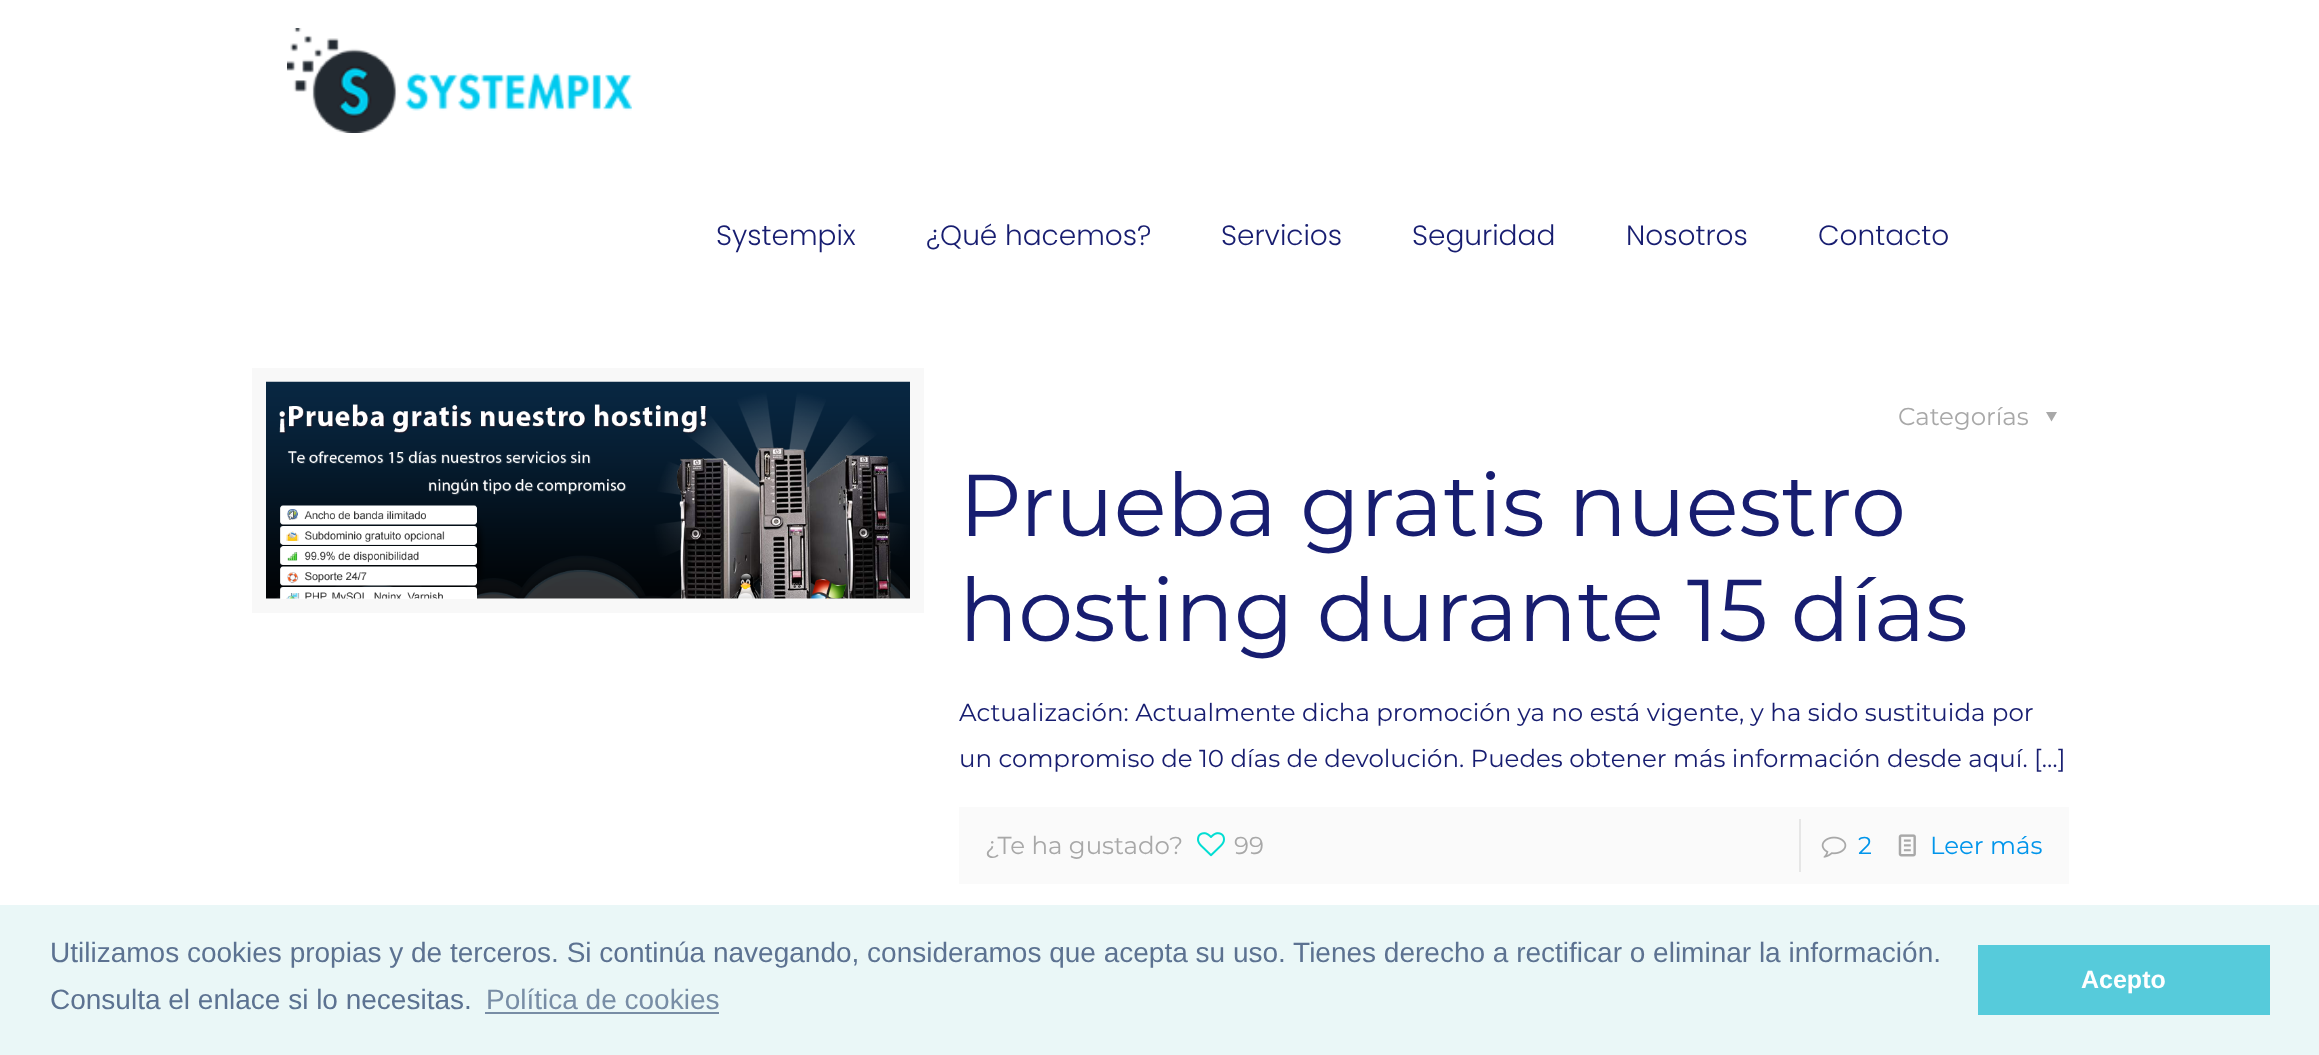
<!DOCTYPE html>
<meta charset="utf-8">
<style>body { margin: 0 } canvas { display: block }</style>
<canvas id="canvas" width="2319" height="1055"></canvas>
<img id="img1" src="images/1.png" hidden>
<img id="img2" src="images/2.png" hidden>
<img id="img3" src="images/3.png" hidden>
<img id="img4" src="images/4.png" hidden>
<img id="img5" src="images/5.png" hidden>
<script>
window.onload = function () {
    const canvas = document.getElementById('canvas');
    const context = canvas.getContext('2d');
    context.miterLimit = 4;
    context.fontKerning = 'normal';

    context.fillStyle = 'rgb(255, 255, 255)';
    context.fillRect(0, 0, 2319, 1055);
    context.drawImage(document.getElementById('img1'), 287, 28, 345, 105);
    context.strokeStyle = 'rgb(248, 248, 248)';
    context.lineWidth = 14;
    context.strokeRect(259, 375, 658, 231);
    context.drawImage(document.getElementById('img2'), 266, 381, 644, 218);
    context.fillStyle = 'rgb(168, 168, 168)';
    context.beginPath();
    context.moveTo(2057, 412);
    context.lineTo(2051.5, 421.5);
    context.lineTo(2046, 412);
    context.closePath();
    context.fill();
    context.fillStyle = 'rgb(250, 250, 250)';
    context.fillRect(959, 807, 1110, 77);
    context.drawImage(document.getElementById('img3'), 1197, 832, 28, 25);
    context.fillStyle = 'rgb(230, 230, 230)';
    context.fillRect(1799, 819, 2, 53);
    context.drawImage(document.getElementById('img4'), 1821, 836, 26, 22);
    context.drawImage(document.getElementById('img5'), 1898, 834, 18, 23);
    context.fillStyle = 'rgb(234, 247, 247)';
    context.fillRect(0, 905, 2319, 150);
    context.fillStyle = 'rgb(120, 141, 165)';
    context.fillRect(485, 1012, 234, 2);
    context.fillStyle = 'rgb(86, 203, 219)';
    context.fillRect(1978, 945, 292, 70);
    context.font = '300 28px Poppins';
    context.fillStyle = 'rgb(23, 29, 112)';
    context.fillText('Systempix', 716, 245);
    context.fillText('¿Qué hacemos?', 926, 245);
    context.fillText('Servicios', 1221, 245);
    context.fillText('Seguridad', 1412, 245);
    context.fillText('Nosotros', 1626, 245);
    context.fillText('Contacto', 1818, 245);
    context.font = '24.5px Montserrat';
    context.fillStyle = 'rgb(168, 168, 168)';
    context.fillText('Categorías', 1898, 425);
    context.font = '87.5px Montserrat';
    context.fillStyle = 'rgb(23, 29, 112)';
    context.fillText('Prueba gratis nuestro', 959, 536);
    context.fillText('hosting durante 15 días', 959, 641);
    context.font = '24.5px Montserrat';
    context.fillText('Actualización: Actualmente dicha promoción ya no está vigente, y ha sido sustituida por', 959, 721);
    context.fillText('un compromiso de 10 días de devolución. Puedes obtener más información desde aquí. […]', 959, 767);
    context.fillStyle = 'rgb(168, 168, 168)';
    context.fillText('¿Te ha gustado?', 985, 854);
    context.fillText('99', 1234, 854);
    context.fillStyle = 'rgb(0, 149, 235)';
    context.fillText('2', 1858, 854);
    context.fillText('Leer más', 1930, 854);
    context.font = '28px Liberation Sans';
    context.fillStyle = 'rgb(92, 114, 145)';
    context.fillText('Utilizamos cookies propias y de terceros. Si continúa navegando, consideramos que acepta su uso. Tienes derecho a rectificar o eliminar la información.', 50, 962);
    context.fillText('Consulta el enlace si lo necesitas.', 50, 1009);
    context.fillStyle = 'rgb(120, 141, 165)';
    context.fillText('Política de cookies', 486, 1009);
    context.font = 'bold 25px Liberation Sans';
    context.fillStyle = 'rgb(255, 255, 255)';
    context.fillText('Acepto', 2081, 988);
};
</script>
